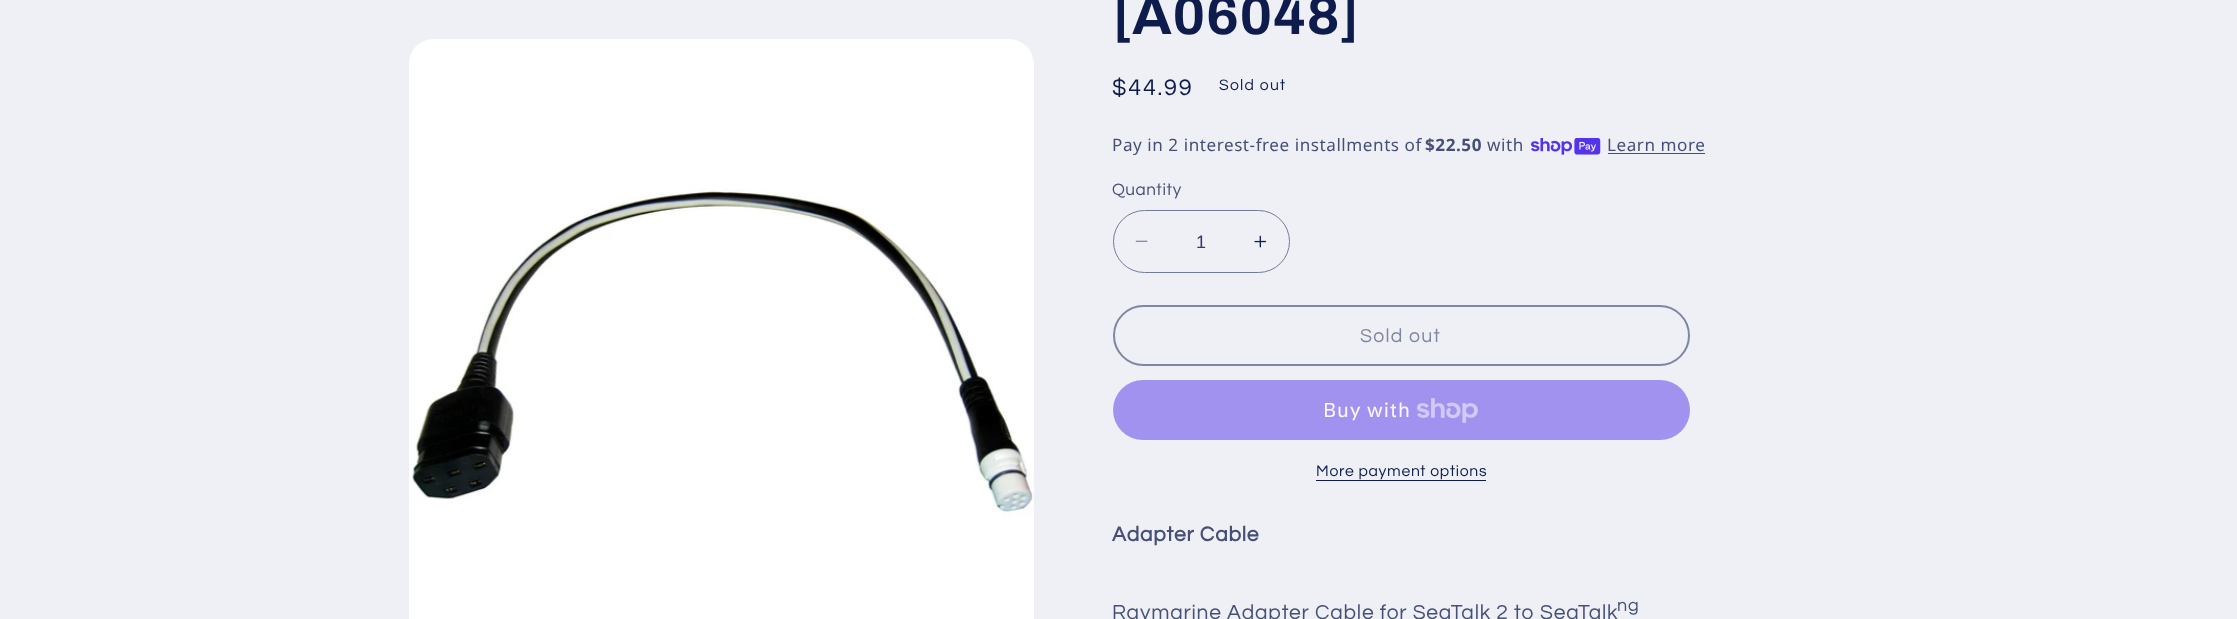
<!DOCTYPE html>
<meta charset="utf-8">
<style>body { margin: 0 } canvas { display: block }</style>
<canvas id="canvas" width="2237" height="619"></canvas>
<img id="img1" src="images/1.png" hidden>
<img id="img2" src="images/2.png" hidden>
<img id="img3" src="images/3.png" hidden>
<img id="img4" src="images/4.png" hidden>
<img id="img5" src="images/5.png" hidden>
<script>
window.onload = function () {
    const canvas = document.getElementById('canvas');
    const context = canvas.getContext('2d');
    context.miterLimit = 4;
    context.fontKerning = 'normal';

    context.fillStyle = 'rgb(239, 240, 245)';
    context.fillRect(0, 0, 2237, 619);
    context.drawImage(document.getElementById('img1'), 409, 39, 625, 580);
    context.drawImage(document.getElementById('img2'), 1531, 138, 70, 17);
    context.fillStyle = 'rgb(70, 80, 119)';
    context.fillRect(1608, 153, 97, 1);
    context.drawImage(document.getElementById('img3'), 1135, 240, 13, 2);
    context.drawImage(document.getElementById('img4'), 1254, 235, 13, 13);
    context.beginPath();
    context.roundRect(1113.5, 210.5, 176, 62, 31);
    context.strokeStyle = 'rgb(115, 123, 153)';
    context.stroke();
    context.beginPath();
    context.roundRect(1114, 306, 575, 59, 29.5);
    context.strokeStyle = 'rgb(127, 134, 161)';
    context.lineWidth = 2;
    context.stroke();
    context.fillStyle = 'rgb(162, 146, 240)';
    context.beginPath();
    context.roundRect(1113, 380, 577, 60, 30);
    context.fill();
    context.drawImage(document.getElementById('img5'), 1417, 398, 61, 25);
    context.fillStyle = 'rgb(14, 27, 77)';
    context.fillRect(1316, 480, 170, 1);
    context.letterSpacing = '0.75px';
    context.font = 'bold 55px Archivo';
    context.fillText('[A06048]', 1112, 34);
    context.letterSpacing = '1.75px';
    context.font = '23.5px Questrial';
    context.fillText('$44.99', 1112, 95);
    context.letterSpacing = '1.25px';
    context.font = '15.75px Questrial';
    context.fillText('Sold out', 1219, 90);
    context.letterSpacing = '0.55px';
    context.font = '17.1px Noto Sans';
    context.fillStyle = 'rgb(70, 80, 119)';
    context.fillText('Pay in 2 interest-free installments of', 1112, 151);
    context.font = 'bold 17.1px Noto Sans';
    context.fillText('$22.50', 1425, 151);
    context.font = '17.1px Noto Sans';
    context.fillText('with', 1487, 151);
    context.fillText('Learn more', 1607, 151);
    context.font = '17.1px Questrial';
    context.fillText('Quantity', 1112, 195);
    context.letterSpacing = '0px';
    context.font = '18px Liberation Sans';
    context.fillStyle = 'rgb(48, 59, 102)';
    context.fillText('1', 1196, 248);
    context.letterSpacing = '1.25px';
    context.font = '19.5px Questrial';
    context.fillStyle = 'rgb(127, 134, 161)';
    context.fillText('Sold out', 1360, 342);
    context.letterSpacing = '0.8px';
    context.font = '20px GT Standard';
    context.fillStyle = 'rgb(247, 248, 250)';
    context.fillText('Buy with', 1323, 417);
    context.letterSpacing = '0.7px';
    context.font = '15.75px Questrial';
    context.fillStyle = 'rgb(14, 27, 77)';
    context.fillText('More payment options', 1316, 476);
    context.letterSpacing = '0.8px';
    context.font = 'bold 21px Questrial';
    context.fillStyle = 'rgb(70, 80, 119)';
    context.fillText('Adapter Cable', 1112, 541);
    context.font = '21px Questrial';
    context.fillText('Raymarine Adapter Cable for SeaTalk 2 to SeaTalk', 1112, 619);
    context.font = '18px Questrial';
    context.fillText('ng', 1617, 611);
};
</script>
